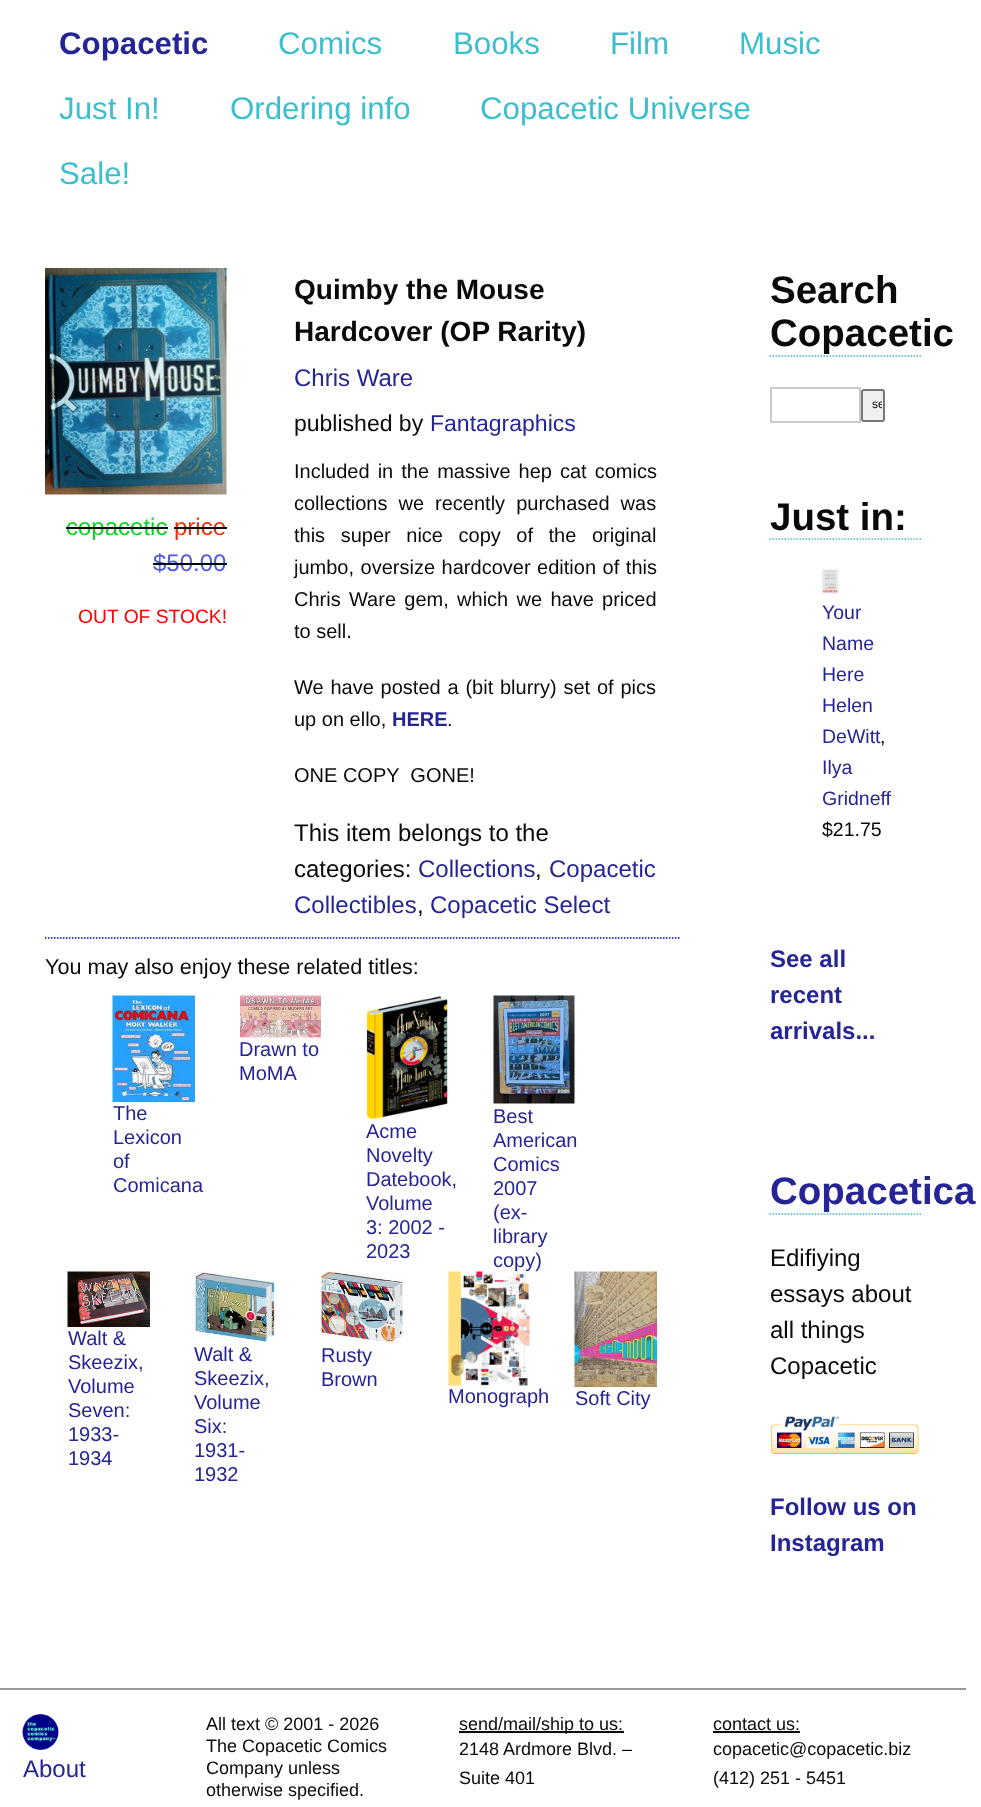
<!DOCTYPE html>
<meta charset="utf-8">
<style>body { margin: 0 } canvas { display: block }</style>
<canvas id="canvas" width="981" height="1807"></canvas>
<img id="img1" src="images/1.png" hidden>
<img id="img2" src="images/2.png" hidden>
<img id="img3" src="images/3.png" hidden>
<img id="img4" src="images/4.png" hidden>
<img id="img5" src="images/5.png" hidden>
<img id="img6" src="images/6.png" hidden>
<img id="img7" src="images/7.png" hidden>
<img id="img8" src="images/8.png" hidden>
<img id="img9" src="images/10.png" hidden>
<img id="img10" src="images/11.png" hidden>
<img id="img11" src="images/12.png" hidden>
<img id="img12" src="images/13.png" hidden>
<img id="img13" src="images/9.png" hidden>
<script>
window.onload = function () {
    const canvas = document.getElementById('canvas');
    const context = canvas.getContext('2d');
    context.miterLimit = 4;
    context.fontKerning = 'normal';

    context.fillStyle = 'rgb(255, 255, 255)';
    context.fillRect(0, 0, 981, 1807);
    context.drawImage(document.getElementById('img1'), 45, 268, 182, 227);
    context.beginPath();
    context.moveTo(45, 938);
    context.lineTo(679.5, 938);
    context.strokeStyle = 'rgb(0, 0, 255)';
    context.lineWidth = 1.5;
    context.setLineDash([1.5, 1.5]);
    context.stroke();
    context.drawImage(document.getElementById('img2'), 240, 995, 81, 43);
    context.drawImage(document.getElementById('img3'), 112, 995, 83, 107);
    context.drawImage(document.getElementById('img4'), 366, 996, 82, 124);
    context.drawImage(document.getElementById('img5'), 493, 995, 82, 109);
    context.drawImage(document.getElementById('img6'), 67, 1271, 83, 56);
    context.drawImage(document.getElementById('img7'), 195, 1271, 81, 71);
    context.drawImage(document.getElementById('img8'), 321, 1271, 83, 73);
    context.drawImage(document.getElementById('img9'), 574, 1271, 83, 116);
    context.beginPath();
    context.moveTo(769.5, 356);
    context.lineTo(921, 356);
    context.strokeStyle = 'rgb(59, 191, 206)';
    context.stroke();
    context.strokeStyle = 'rgb(202, 202, 202)';
    context.lineWidth = 2;
    context.setLineDash([]);
    context.strokeRect(771, 388, 89, 34);
    context.fillStyle = 'rgb(239, 239, 239)';
    context.beginPath();
    context.roundRect(862, 390, 22, 31, 2);
    context.fill();
    context.strokeStyle = 'rgb(118, 118, 118)';
    context.stroke();
    context.beginPath();
    context.moveTo(769.5, 539);
    context.lineTo(921, 539);
    context.strokeStyle = 'rgb(59, 191, 206)';
    context.lineWidth = 1.5;
    context.setLineDash([1.5, 1.5]);
    context.stroke();
    context.drawImage(document.getElementById('img10'), 822, 569, 17, 25);
    context.beginPath();
    context.moveTo(769.5, 1214);
    context.lineTo(921, 1214);
    context.stroke();
    context.drawImage(document.getElementById('img11'), 771, 1416, 148, 38);
    context.fillStyle = 'rgb(153, 153, 153)';
    context.fillRect(0, 1688, 966, 2);
    context.drawImage(document.getElementById('img12'), 22, 1714, 37, 36);
    context.fillStyle = 'rgb(10, 10, 10)';
    context.fillRect(459, 1731, 165, 2);
    context.fillRect(713, 1731, 87, 2);
    context.font = 'bold 31.25px Liberation Sans';
    context.fillStyle = 'rgb(37, 37, 149)';
    context.fillText('Copacetic', 59, 54);
    context.font = '31.25px Liberation Sans';
    context.fillStyle = 'rgb(59, 191, 206)';
    context.fillText('Comics', 278, 54);
    context.fillText('Books', 453, 54);
    context.fillText('Film', 610, 54);
    context.fillText('Music', 739, 54);
    context.fillText('Just In!', 59, 119);
    context.fillText('Ordering info', 230, 119);
    context.fillText('Copacetic Universe', 480, 119);
    context.fillText('Sale!', 59, 184);
    context.font = '24px Liberation Sans';
    context.fillStyle = 'rgb(12, 212, 36)';
    context.fillText('copacetic', 66, 535);
    context.fillStyle = 'rgb(10, 10, 10)';
    context.fillRect(66, 527, 102, 2);
    context.fillStyle = 'rgb(232, 50, 9)';
    context.fillText('price', 174, 535);
    context.fillStyle = 'rgb(10, 10, 10)';
    context.fillRect(174, 527, 53, 2);
    context.fillStyle = 'rgb(77, 90, 222)';
    context.fillText('$50.00', 153, 571);
    context.fillStyle = 'rgb(10, 10, 10)';
    context.fillRect(153, 563, 74, 2);
    context.font = '19.25px Liberation Sans';
    context.fillStyle = 'rgb(255, 0, 0)';
    context.fillText('OUT OF STOCK!', 78, 623);
    context.font = 'bold 28px Liberation Sans';
    context.fillStyle = 'rgb(10, 10, 10)';
    context.fillText('Quimby the Mouse', 294, 299);
    context.fillText('Hardcover (OP Rarity)', 294, 341);
    context.font = '24px Liberation Sans';
    context.fillStyle = 'rgb(37, 37, 149)';
    context.fillText('Chris Ware', 294, 386);
    context.font = '23px Liberation Sans';
    context.fillStyle = 'rgb(10, 10, 10)';
    context.fillText('published by', 294, 431);
    context.fillStyle = 'rgb(37, 37, 149)';
    context.fillText('Fantagraphics', 430, 431);
    context.wordSpacing = '2.5px';
    context.font = '20px Liberation Sans';
    context.fillStyle = 'rgb(10, 10, 10)';
    context.fillText('Included in the massive hep cat comics', 294, 478);
    context.wordSpacing = '5.5px';
    context.fillText('collections we recently purchased was', 294, 510);
    context.wordSpacing = '10px';
    context.fillText('this super nice copy of the original', 294, 542);
    context.wordSpacing = '1px';
    context.fillText('jumbo, oversize hardcover edition of this', 294, 574);
    context.wordSpacing = '2.75px';
    context.fillText('Chris Ware gem, which we have priced', 294, 606);
    context.wordSpacing = '0px';
    context.fillText('to sell.', 294, 638);
    context.wordSpacing = '1.25px';
    context.fillText('We have posted a (bit blurry) set of pics', 294, 694);
    context.wordSpacing = '0px';
    context.fillText('up on ello,', 294, 726);
    context.font = 'bold 20px Liberation Sans';
    context.fillStyle = 'rgb(37, 37, 149)';
    context.fillText('HERE', 392, 726);
    context.font = '20px Liberation Sans';
    context.fillStyle = 'rgb(10, 10, 10)';
    context.fillText('.', 447, 726);
    context.fillText('ONE COPY  GONE!', 294, 782);
    context.font = '24px Liberation Sans';
    context.fillText('This item belongs to the', 294, 841);
    context.fillText('categories:', 294, 877);
    context.fillStyle = 'rgb(37, 37, 149)';
    context.fillText('Collections', 418, 877);
    context.fillStyle = 'rgb(10, 10, 10)';
    context.fillText(',', 535, 877);
    context.fillStyle = 'rgb(37, 37, 149)';
    context.fillText('Copacetic', 549, 877);
    context.fillText('Collectibles', 294, 913);
    context.fillStyle = 'rgb(10, 10, 10)';
    context.fillText(',', 417, 913);
    context.fillStyle = 'rgb(37, 37, 149)';
    context.fillText('Copacetic Select', 430, 913);
    context.font = '21.6px Liberation Sans';
    context.fillStyle = 'rgb(10, 10, 10)';
    context.fillText('You may also enjoy these related titles:', 45, 974);
    context.font = '20px Liberation Sans';
    context.fillStyle = 'rgb(37, 37, 149)';
    context.fillText('Drawn to', 239, 1056);
    context.fillText('MoMA', 239, 1080);
    context.fillText('The', 113, 1120);
    context.fillText('Lexicon', 113, 1144);
    context.fillText('of', 113, 1168);
    context.fillText('Comicana', 113, 1192);
    context.fillText('Acme', 366, 1138);
    context.fillText('Novelty', 366, 1162);
    context.fillText('Datebook,', 366, 1186);
    context.fillText('Volume', 366, 1210);
    context.fillText('3: 2002 -', 366, 1234);
    context.fillText('2023', 366, 1258);
    context.fillText('Best', 493, 1123);
    context.fillText('American', 493, 1147);
    context.fillText('Comics', 493, 1171);
    context.fillText('2007', 493, 1195);
    context.fillText('(ex-', 493, 1219);
    context.fillText('library', 493, 1243);
    context.fillText('copy)', 493, 1267);
    context.fillText('Walt &', 68, 1345);
    context.fillText('Skeezix,', 68, 1369);
    context.fillText('Volume', 68, 1393);
    context.fillText('Seven:', 68, 1417);
    context.fillText('1933-', 68, 1441);
    context.fillText('1934', 68, 1465);
    context.fillText('Walt &', 194, 1361);
    context.fillText('Skeezix,', 194, 1385);
    context.fillText('Volume', 194, 1409);
    context.fillText('Six:', 194, 1433);
    context.fillText('1931-', 194, 1457);
    context.fillText('1932', 194, 1481);
    context.fillText('Rusty', 321, 1362);
    context.fillText('Brown', 321, 1386);
    context.drawImage(document.getElementById('img13'), 448, 1271, 82, 115);
    context.fillText('Monograph', 448, 1403);
    context.fillText('Soft City', 575, 1405);
    context.font = 'bold 38.5px Liberation Sans';
    context.fillStyle = 'rgb(10, 10, 10)';
    context.fillText('Search', 770, 303);
    context.fillText('Copacetic', 770, 346);
    context.save();
    context.beginPath();
    context.rect(864, 392, 18, 27);
    context.clip();
    context.font = '12px Liberation Sans';
    context.fillText('se', 872, 408);
    context.restore();
    context.fillText('Just in:', 770, 530);
    context.font = '19.5px Liberation Sans';
    context.fillStyle = 'rgb(37, 37, 149)';
    context.fillText('Your', 822, 619);
    context.fillText('Name', 822, 650);
    context.fillText('Here', 822, 681);
    context.fillText('Helen', 822, 712);
    context.fillText('DeWitt', 822, 743);
    context.fillStyle = 'rgb(10, 10, 10)';
    context.fillText(',', 880, 743);
    context.fillStyle = 'rgb(37, 37, 149)';
    context.fillText('Ilya', 822, 774);
    context.fillText('Gridneff', 822, 805);
    context.fillStyle = 'rgb(10, 10, 10)';
    context.fillText('$21.75', 822, 836);
    context.font = 'bold 24px Liberation Sans';
    context.fillStyle = 'rgb(37, 37, 149)';
    context.fillText('See all', 770, 967);
    context.fillText('recent', 770, 1003);
    context.fillText('arrivals...', 770, 1039);
    context.font = 'bold 38.5px Liberation Sans';
    context.fillText('Copacetica', 770, 1204);
    context.font = '24px Liberation Sans';
    context.fillStyle = 'rgb(10, 10, 10)';
    context.fillText('Edifiying', 770, 1266);
    context.fillText('essays about', 770, 1302);
    context.fillText('all things', 770, 1338);
    context.fillText('Copacetic', 770, 1374);
    context.font = 'bold 24px Liberation Sans';
    context.fillStyle = 'rgb(37, 37, 149)';
    context.fillText('Follow us on', 770, 1515);
    context.fillText('Instagram', 770, 1551);
    context.font = '24px Liberation Sans';
    context.fillText('About', 23, 1777);
    context.font = '18px Liberation Sans';
    context.fillStyle = 'rgb(10, 10, 10)';
    context.fillText('All text © 2001 - 2026', 206, 1730);
    context.fillText('The Copacetic Comics', 206, 1752);
    context.fillText('Company unless', 206, 1774);
    context.fillText('otherwise specified.', 206, 1796);
    context.fillText('send/mail/ship to us:', 459, 1730);
    context.fillText('2148 Ardmore Blvd. –', 459, 1755);
    context.fillText('Suite 401', 459, 1784);
    context.fillText('contact us:', 713, 1730);
    context.fillText('copacetic@copacetic.biz', 713, 1755);
    context.fillText('(412) 251 - 5451', 713, 1784);
};
</script>
